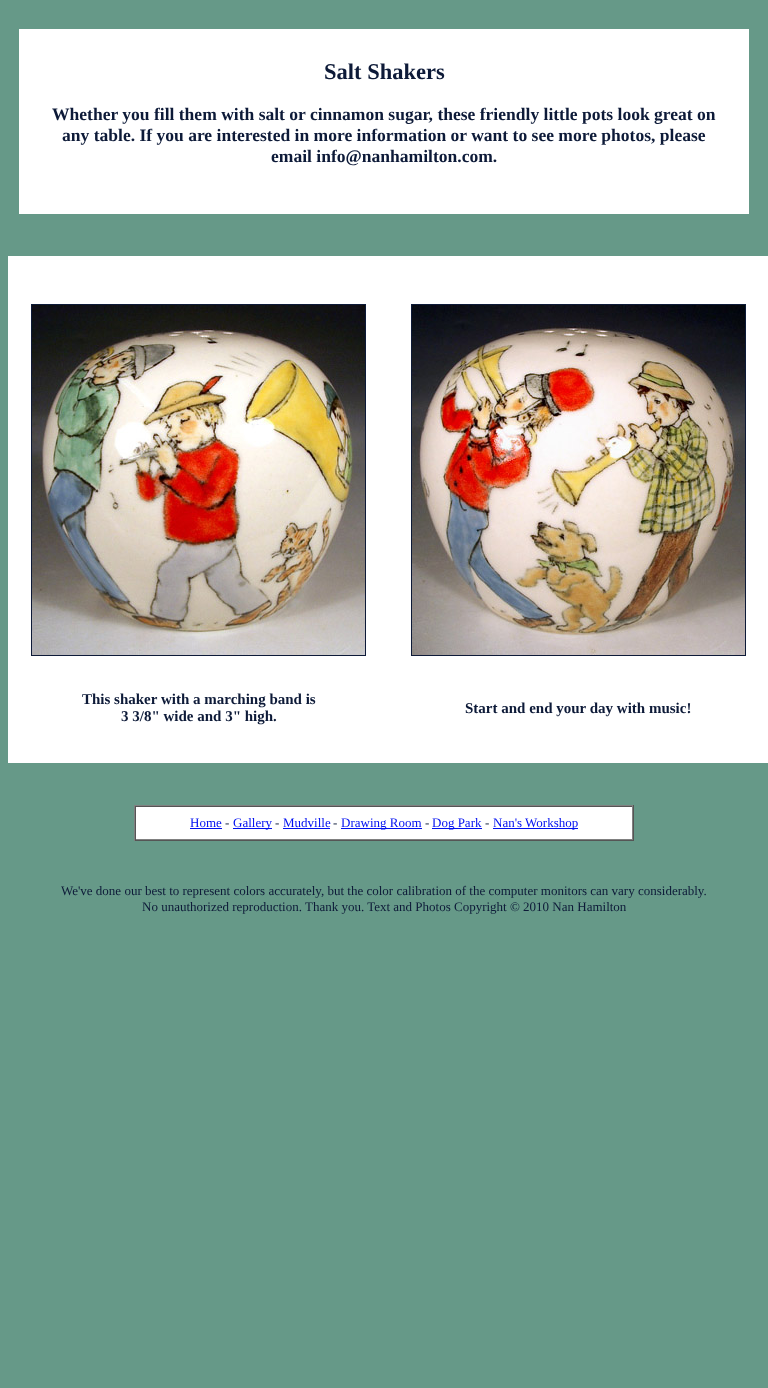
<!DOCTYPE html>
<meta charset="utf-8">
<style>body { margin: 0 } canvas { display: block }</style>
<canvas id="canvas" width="768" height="1388"></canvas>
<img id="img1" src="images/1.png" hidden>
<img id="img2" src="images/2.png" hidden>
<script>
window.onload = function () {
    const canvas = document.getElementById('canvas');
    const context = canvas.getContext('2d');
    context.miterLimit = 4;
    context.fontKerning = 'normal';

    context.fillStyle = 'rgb(102, 153, 136)';
    context.fillRect(0, 0, 768, 1388);
    context.fillStyle = 'rgb(255, 255, 255)';
    context.fillRect(19, 29, 730, 185);
    context.fillRect(8, 256, 760, 507);
    context.strokeStyle = 'rgb(13, 26, 56)';
    context.strokeRect(31.5, 304.5, 334, 351);
    context.drawImage(document.getElementById('img1'), 32, 305, 333, 350);
    context.strokeRect(411.5, 304.5, 334, 351);
    context.drawImage(document.getElementById('img2'), 412, 305, 333, 350);
    context.fillRect(136, 807, 496, 32);
    context.fillStyle = 'rgb(128, 128, 128)';
    context.fillRect(134, 805, 500, 1);
    context.fillStyle = 'rgb(85, 85, 85)';
    context.fillRect(633, 805, 1, 36);
    context.fillRect(134, 840, 500, 1);
    context.fillStyle = 'rgb(128, 128, 128)';
    context.fillRect(134, 805, 1, 36);
    context.fillStyle = 'rgb(85, 85, 85)';
    context.fillRect(135, 806, 498, 1);
    context.fillStyle = 'rgb(128, 128, 128)';
    context.fillRect(632, 806, 1, 34);
    context.fillRect(135, 839, 498, 1);
    context.fillStyle = 'rgb(85, 85, 85)';
    context.fillRect(135, 806, 1, 34);
    context.fillStyle = 'rgb(0, 15, 240)';
    context.fillRect(190, 828, 32, 1);
    context.fillRect(233, 828, 39, 1);
    context.fillRect(283, 828, 47, 1);
    context.fillRect(341, 828, 81, 1);
    context.fillRect(432, 828, 50, 1);
    context.fillRect(493, 828, 85, 1);
    context.font = 'bold 22.5px Liberation Serif';
    context.fillStyle = 'rgb(13, 26, 56)';
    context.fillText('Salt Shakers', 324, 79);
    context.font = 'bold 17.55px Liberation Serif';
    context.fillText('Whether you fill them with salt or cinnamon sugar, these friendly little pots look great on', 52, 120);
    context.fillText('any table. If you are interested in more information or want to see more photos, please', 62, 141);
    context.fillText('email info@nanhamilton.com.', 271, 162);
    context.font = 'bold 15px Liberation Serif';
    context.fillText('This shaker with a marching band is', 82, 704);
    context.fillText('3 3/8" wide and 3" high.', 121, 721);
    context.fillText('Start and end your day with music!', 465, 713);
    context.font = '13px Liberation Serif';
    context.fillStyle = 'rgb(0, 15, 240)';
    context.fillText('Home', 190, 827);
    context.fillStyle = 'rgb(13, 26, 56)';
    context.fillText('-', 225, 827);
    context.fillStyle = 'rgb(0, 15, 240)';
    context.fillText('Gallery', 233, 827);
    context.fillStyle = 'rgb(13, 26, 56)';
    context.fillText('-', 275, 827);
    context.fillStyle = 'rgb(0, 15, 240)';
    context.fillText('Mudville', 283, 827);
    context.fillStyle = 'rgb(13, 26, 56)';
    context.fillText('-', 333, 827);
    context.fillStyle = 'rgb(0, 15, 240)';
    context.fillText('Drawing Room', 341, 827);
    context.fillStyle = 'rgb(13, 26, 56)';
    context.fillText('-', 425, 827);
    context.fillStyle = 'rgb(0, 15, 240)';
    context.fillText('Dog Park', 432, 827);
    context.fillStyle = 'rgb(13, 26, 56)';
    context.fillText('-', 485, 827);
    context.fillStyle = 'rgb(0, 15, 240)';
    context.fillText('Nan\'s Workshop', 493, 827);
    context.fillStyle = 'rgb(13, 26, 56)';
    context.fillText('We\'ve done our best to represent colors accurately, but the color calibration of the computer monitors can vary considerably.', 61, 895);
    context.fillText('No unauthorized reproduction. Thank you. Text and Photos Copyright © 2010 Nan Hamilton', 142, 911);
};
</script>
